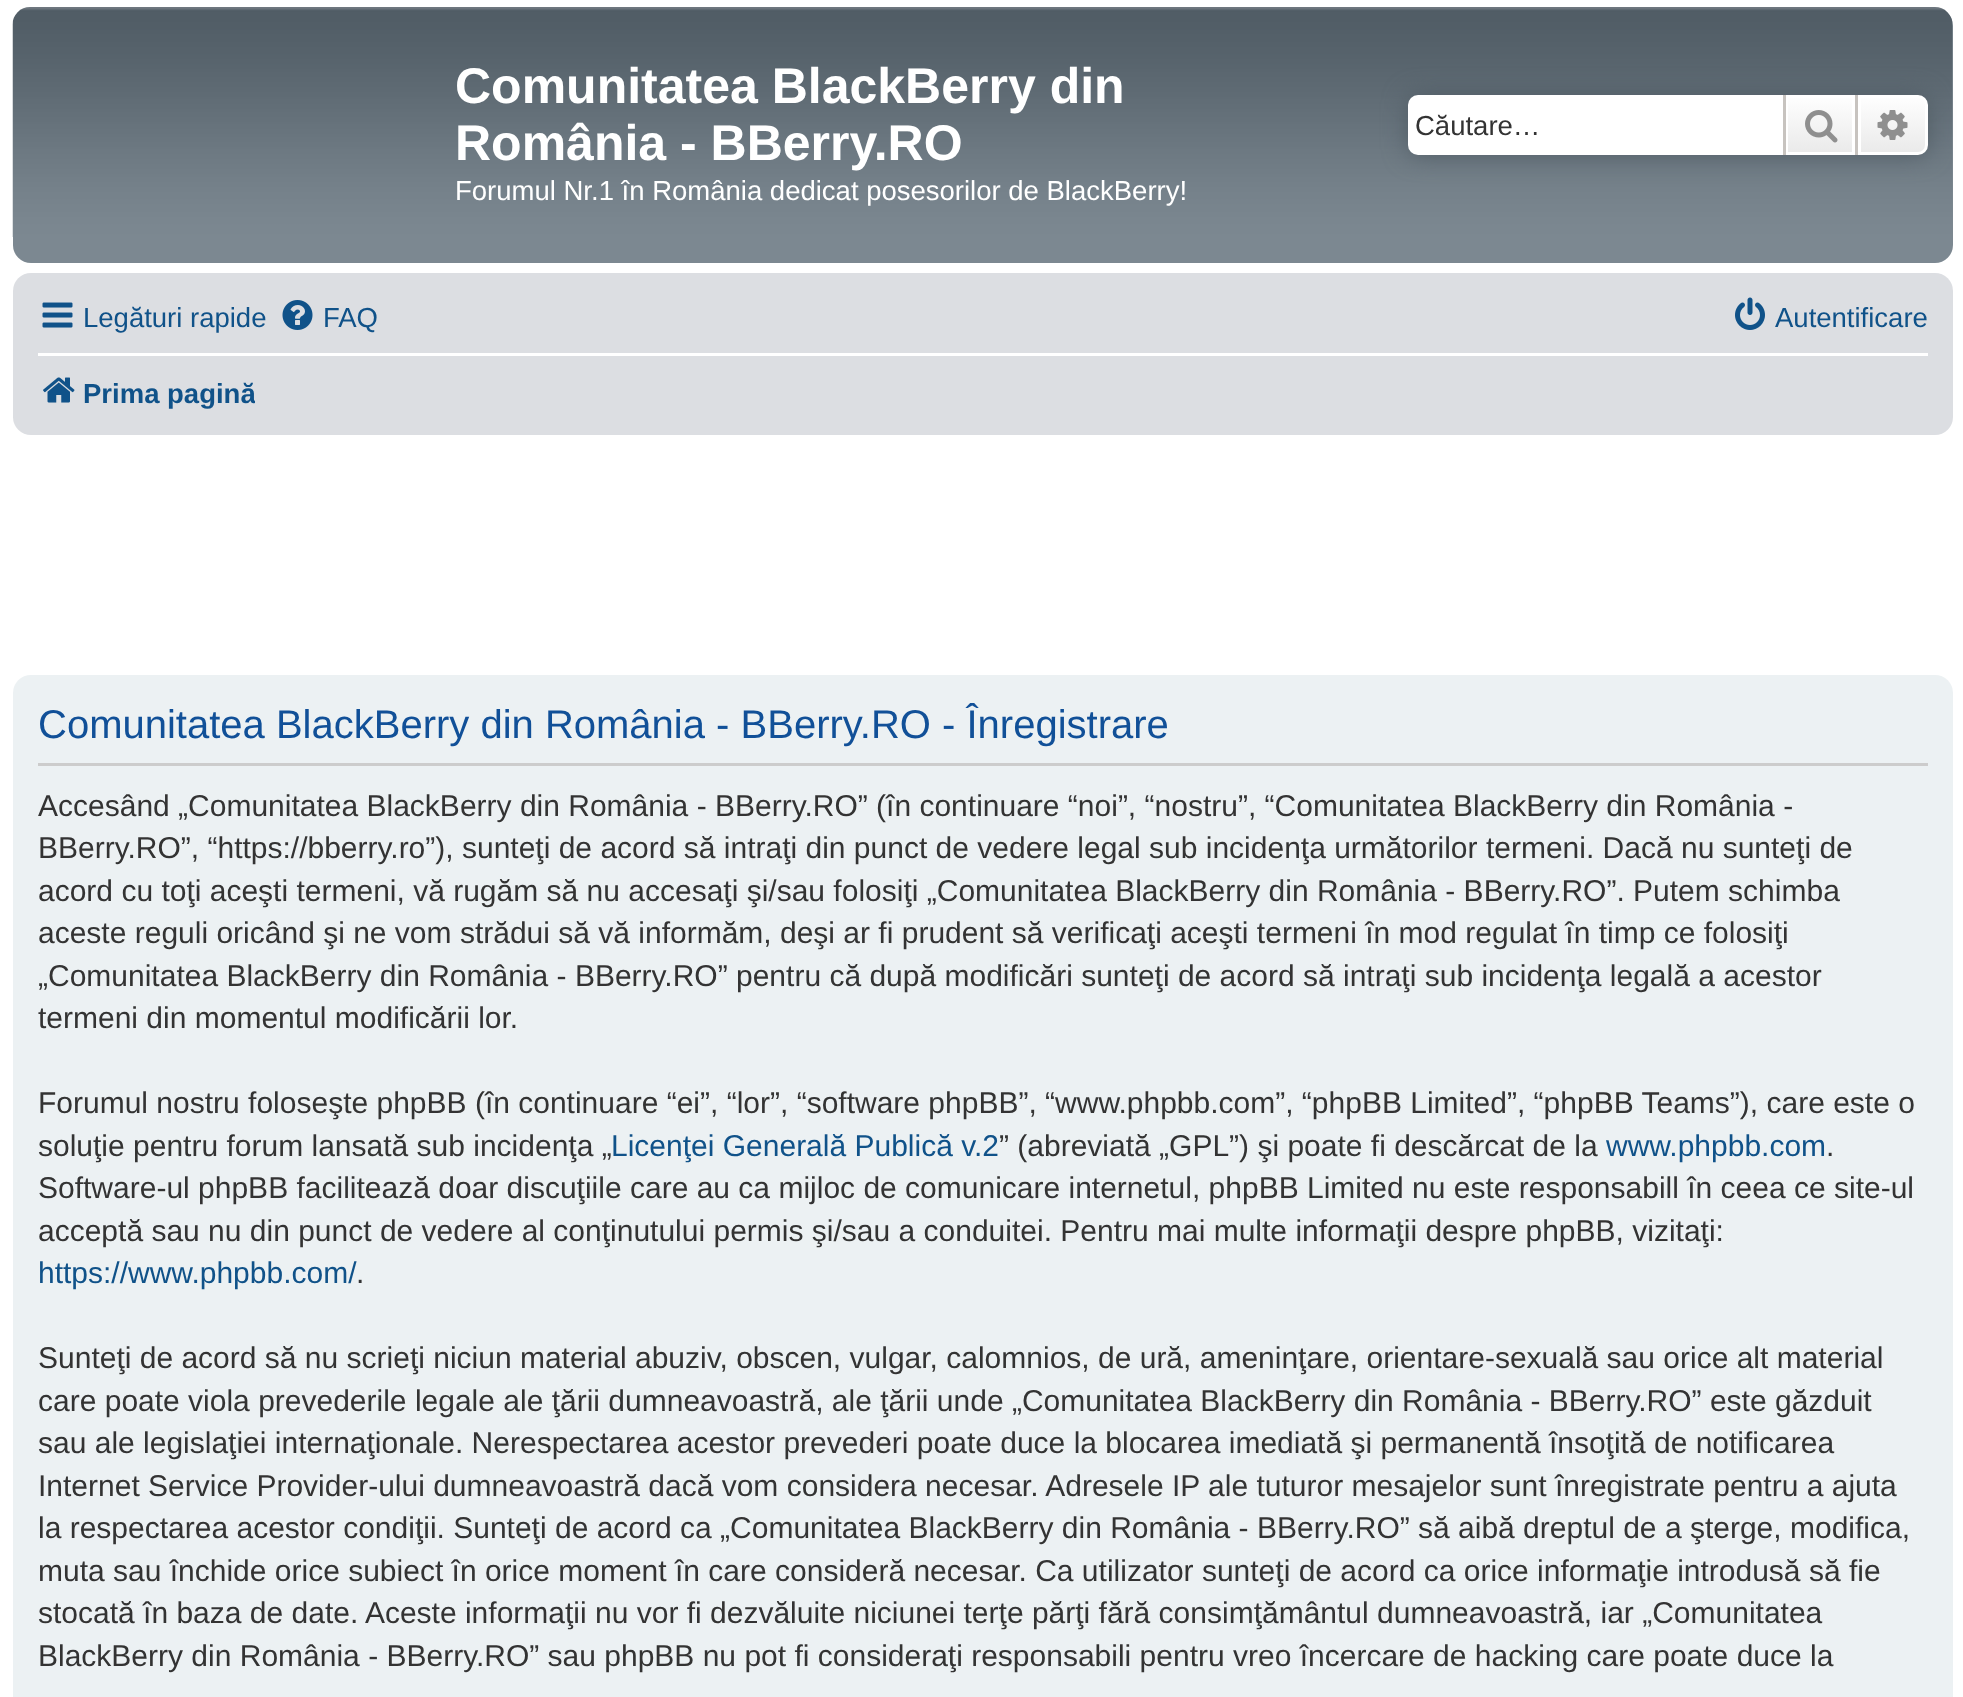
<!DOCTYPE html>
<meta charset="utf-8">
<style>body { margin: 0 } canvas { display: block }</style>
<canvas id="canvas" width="1963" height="1697"></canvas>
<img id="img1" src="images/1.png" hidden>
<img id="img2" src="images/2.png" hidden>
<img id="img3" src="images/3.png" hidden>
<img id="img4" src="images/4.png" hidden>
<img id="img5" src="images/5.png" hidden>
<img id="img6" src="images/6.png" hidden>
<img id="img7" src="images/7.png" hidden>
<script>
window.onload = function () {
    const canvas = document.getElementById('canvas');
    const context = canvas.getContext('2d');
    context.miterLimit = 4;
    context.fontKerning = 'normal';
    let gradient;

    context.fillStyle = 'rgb(255, 255, 255)';
    context.fillRect(0, 0, 1963, 1697);
    context.fillStyle = 'rgb(124, 136, 145)';
    context.beginPath();
    context.roundRect(13, 8, 1940, 255, 18);
    context.fill();
    context.drawImage(document.getElementById('img1'), 12, 7, 1941, 230);
    context.fillStyle = 'rgb(80, 92, 101)';
    context.filter = 'blur(12.5px)';
    context.beginPath();
    context.roundRect(1408, 95, 520, 60, 10);
    context.fill();
    context.filter = 'none';
    context.fillStyle = 'rgb(255, 255, 255)';
    context.beginPath();
    context.roundRect(1408, 95, 375, 60, [10, 0, 0, 10]);
    context.fill();
    gradient = context.createLinearGradient(1820, 95, 1820, 155);
    gradient.addColorStop(0, 'rgb(255, 255, 255)');
    gradient.addColorStop(1, 'rgb(233, 233, 233)');
    context.fillStyle = gradient;
    context.fillRect(1788, 98, 64, 54);
    context.strokeStyle = 'rgb(255, 255, 255)';
    context.lineWidth = 3;
    context.strokeRect(1786.5, 96.5, 67, 57);
    context.fillStyle = 'rgb(199, 195, 191)';
    context.fillRect(1855, 95, 3, 60);
    context.fillRect(1783, 95, 3, 60);
    context.drawImage(document.getElementById('img2'), 1805, 110, 33, 33);
    gradient = context.createLinearGradient(1893, 95, 1893, 155);
    gradient.addColorStop(0, 'rgb(255, 255, 255)');
    gradient.addColorStop(1, 'rgb(233, 233, 233)');
    context.fillStyle = gradient;
    context.beginPath();
    context.roundRect(1859.5, 96.5, 67, 57, [0, 8.5, 8.5, 0]);
    context.fill();
    context.stroke();
    context.drawImage(document.getElementById('img3'), 1877, 110, 31, 30);
    context.fillStyle = 'rgb(220, 222, 226)';
    context.beginPath();
    context.roundRect(13, 273, 1940, 162, 18);
    context.fill();
    context.drawImage(document.getElementById('img4'), 42, 302, 31, 26);
    context.drawImage(document.getElementById('img5'), 282, 300, 31, 30);
    context.drawImage(document.getElementById('img6'), 1735, 297, 30, 33);
    context.fillStyle = 'rgb(255, 255, 255)';
    context.fillRect(38, 353, 1890, 3);
    context.drawImage(document.getElementById('img7'), 43, 377, 32, 26);
    context.fillStyle = 'rgb(236, 241, 243)';
    context.beginPath();
    context.roundRect(13, 675, 1940, 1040, 18);
    context.fill();
    context.fillStyle = 'rgb(204, 204, 204)';
    context.fillRect(38, 763, 1890, 3);
    context.font = 'bold 50px Liberation Sans';
    context.fillStyle = 'rgb(255, 255, 255)';
    context.fillText('Comunitatea BlackBerry din', 455, 103);
    context.fillText('România - BBerry.RO', 455, 160);
    context.font = '27.5px Liberation Sans';
    context.fillText('Forumul Nr.1 în România dedicat posesorilor de BlackBerry!', 455, 200);
    context.fillStyle = 'rgb(51, 51, 51)';
    context.fillText('Căutare…', 1415, 135);
    context.fillStyle = 'rgb(16, 82, 137)';
    context.fillText('Legături rapide', 83, 327);
    context.fillText('FAQ', 323, 327);
    context.fillText('Autentificare', 1775, 327);
    context.save();
    context.beginPath();
    context.rect(38, 363, 217, 60);
    context.clip();
    context.font = 'bold 27.5px Liberation Sans';
    context.fillText('Prima pagină', 83, 403);
    context.restore();
    context.font = '40px Liberation Sans';
    context.fillStyle = 'rgb(17, 80, 152)';
    context.fillText('Comunitatea BlackBerry din România - BBerry.RO - Înregistrare', 38, 738);
    context.font = '30px Liberation Sans';
    context.fillStyle = 'rgb(51, 51, 51)';
    context.fillText('Accesând „Comunitatea BlackBerry din România - BBerry.RO” (în continuare “noi”, “nostru”, “Comunitatea BlackBerry din România -', 38, 816);
    context.fillText('BBerry.RO”, “https://bberry.ro”), sunteţi de acord să intraţi din punct de vedere legal sub incidenţa următorilor termeni. Dacă nu sunteţi de', 38, 858);
    context.fillText('acord cu toţi aceşti termeni, vă rugăm să nu accesaţi şi/sau folosiţi „Comunitatea BlackBerry din România - BBerry.RO”. Putem schimba', 38, 901);
    context.fillText('aceste reguli oricând şi ne vom strădui să vă informăm, deşi ar fi prudent să verificaţi aceşti termeni în mod regulat în timp ce folosiţi', 38, 943);
    context.fillText('„Comunitatea BlackBerry din România - BBerry.RO” pentru că după modificări sunteţi de acord să intraţi sub incidenţa legală a acestor', 38, 986);
    context.fillText('termeni din momentul modificării lor.', 38, 1028);
    context.fillText('Forumul nostru foloseşte phpBB (în continuare “ei”, “lor”, “software phpBB”, “www.phpbb.com”, “phpBB Limited”, “phpBB Teams”), care este o', 38, 1113);
    context.fillText('soluţie pentru forum lansată sub incidenţa „', 38, 1156);
    context.fillStyle = 'rgb(16, 82, 137)';
    context.fillText('Licenţei Generală Publică v.2', 611, 1156);
    context.fillStyle = 'rgb(51, 51, 51)';
    context.fillText('” (abreviată „GPL”) şi poate fi descărcat de la', 999, 1156);
    context.fillStyle = 'rgb(16, 82, 137)';
    context.fillText('www.phpbb.com', 1606, 1156);
    context.fillStyle = 'rgb(51, 51, 51)';
    context.fillText('.', 1826, 1156);
    context.fillText('Software-ul phpBB facilitează doar discuţiile care au ca mijloc de comunicare internetul, phpBB Limited nu este responsabill în ceea ce site-ul', 38, 1198);
    context.fillText('acceptă sau nu din punct de vedere al conţinutului permis şi/sau a conduitei. Pentru mai multe informaţii despre phpBB, vizitaţi:', 38, 1241);
    context.fillStyle = 'rgb(16, 82, 137)';
    context.fillText('https://www.phpbb.com/', 38, 1283);
    context.fillStyle = 'rgb(51, 51, 51)';
    context.fillText('.', 356, 1283);
    context.fillText('Sunteţi de acord să nu scrieţi niciun material abuziv, obscen, vulgar, calomnios, de ură, ameninţare, orientare-sexuală sau orice alt material', 38, 1368);
    context.fillText('care poate viola prevederile legale ale ţării dumneavoastră, ale ţării unde „Comunitatea BlackBerry din România - BBerry.RO” este găzduit', 38, 1411);
    context.fillText('sau ale legislaţiei internaţionale. Nerespectarea acestor prevederi poate duce la blocarea imediată şi permanentă însoţită de notificarea', 38, 1453);
    context.fillText('Internet Service Provider-ului dumneavoastră dacă vom considera necesar. Adresele IP ale tuturor mesajelor sunt înregistrate pentru a ajuta', 38, 1496);
    context.fillText('la respectarea acestor condiţii. Sunteţi de acord ca „Comunitatea BlackBerry din România - BBerry.RO” să aibă dreptul de a şterge, modifica,', 38, 1538);
    context.fillText('muta sau închide orice subiect în orice moment în care consideră necesar. Ca utilizator sunteţi de acord ca orice informaţie introdusă să fie', 38, 1581);
    context.fillText('stocată în baza de date. Aceste informaţii nu vor fi dezvăluite niciunei terţe părţi fără consimţământul dumneavoastră, iar „Comunitatea', 38, 1623);
    context.fillText('BlackBerry din România - BBerry.RO” sau phpBB nu pot fi consideraţi responsabili pentru vreo încercare de hacking care poate duce la', 38, 1666);
};
</script>
